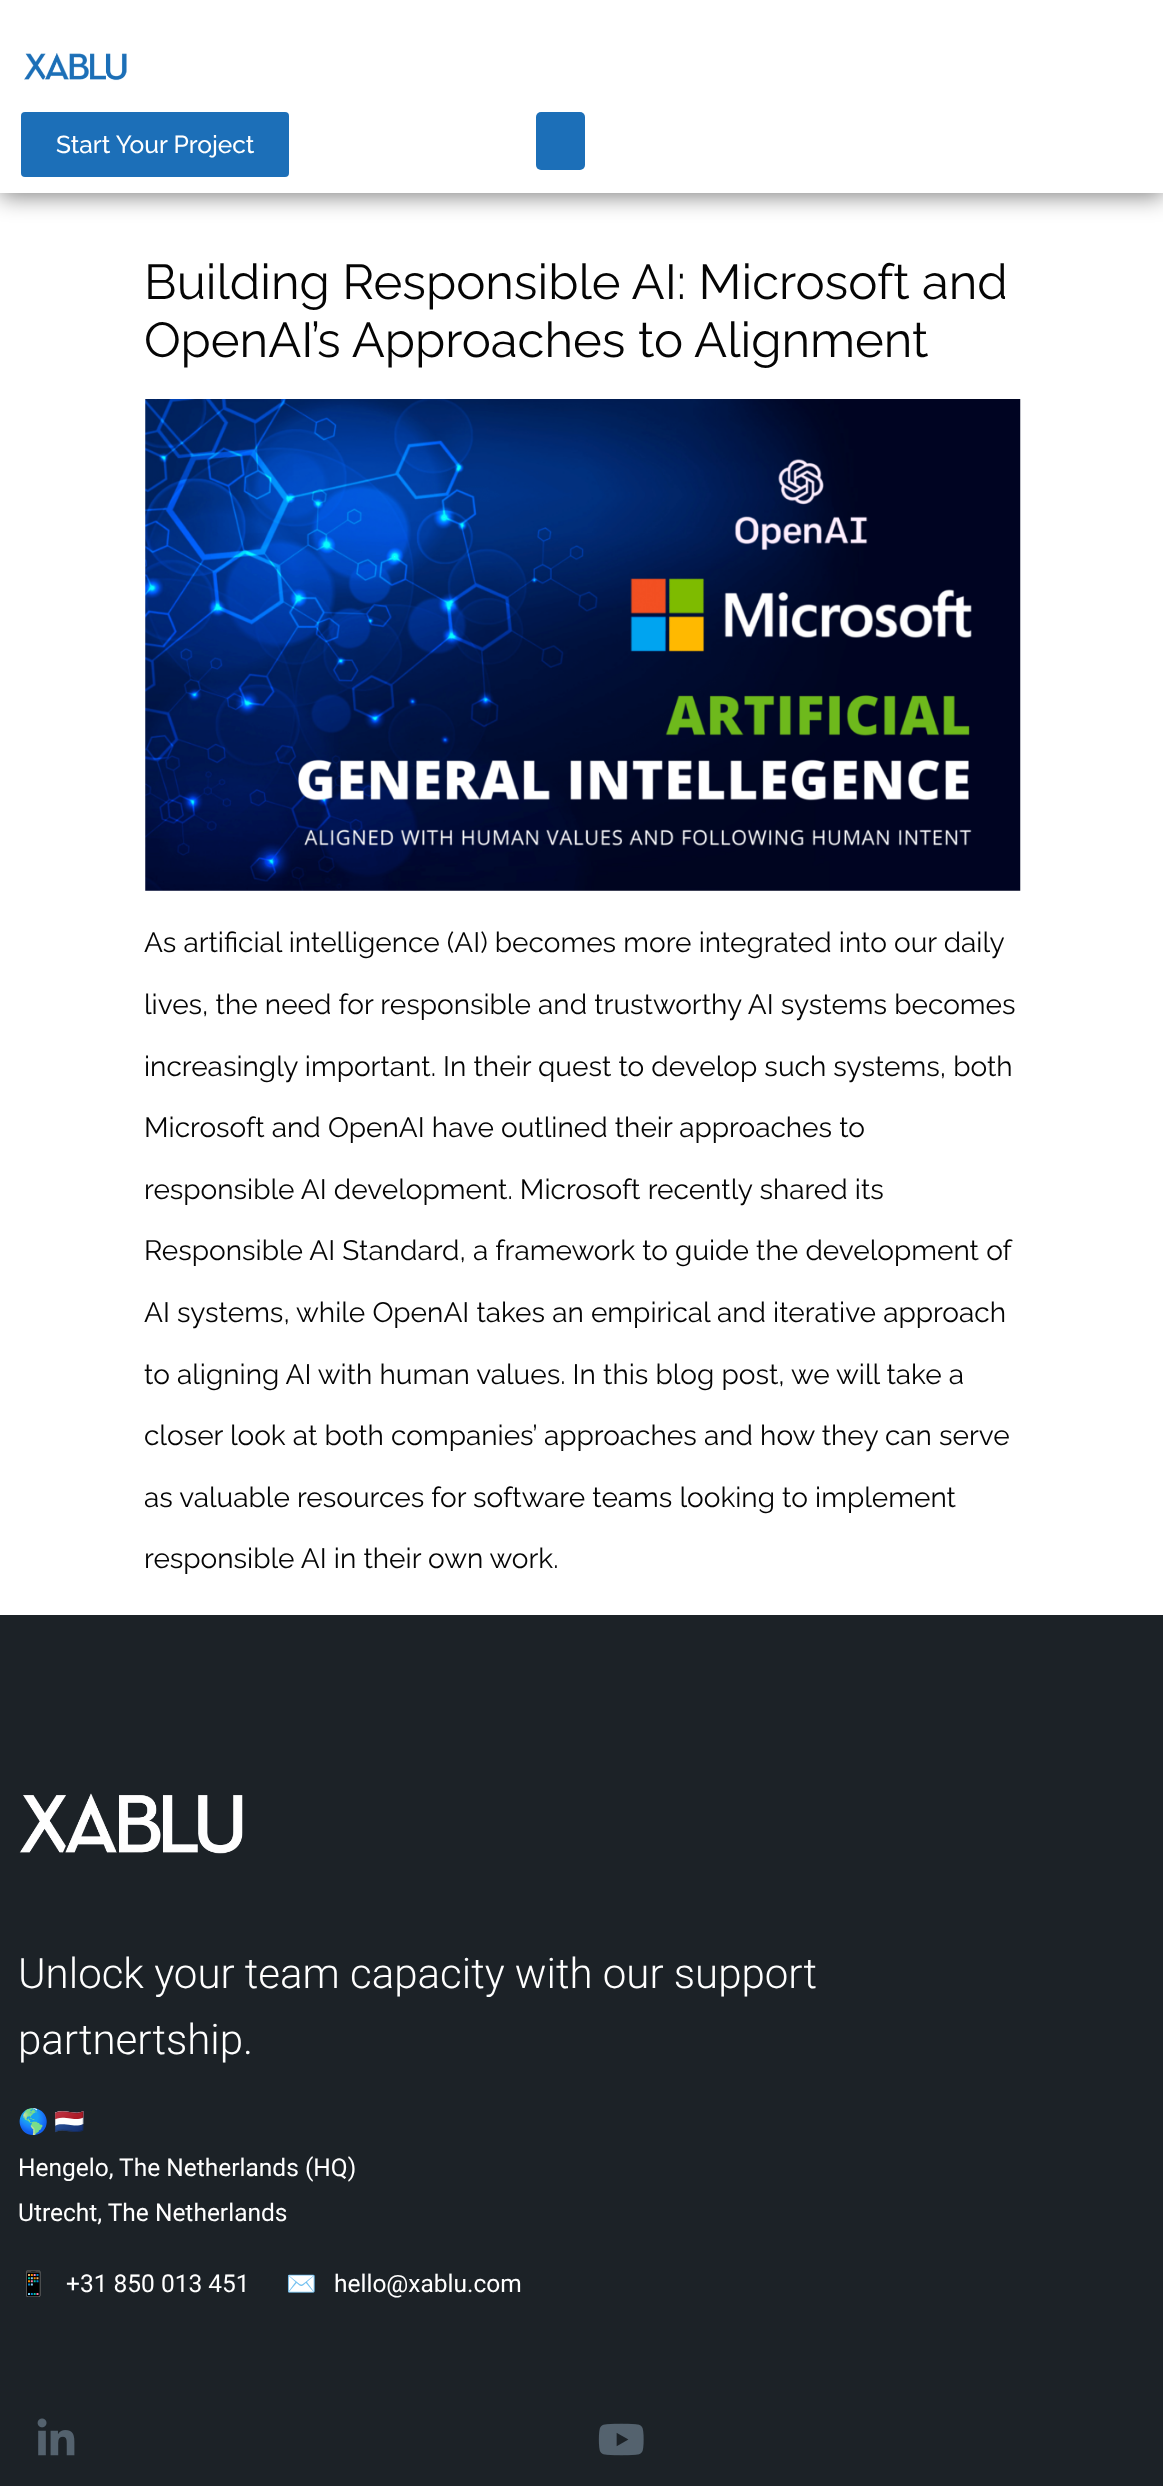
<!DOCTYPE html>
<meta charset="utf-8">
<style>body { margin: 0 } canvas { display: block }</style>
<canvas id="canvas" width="1163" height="2486"></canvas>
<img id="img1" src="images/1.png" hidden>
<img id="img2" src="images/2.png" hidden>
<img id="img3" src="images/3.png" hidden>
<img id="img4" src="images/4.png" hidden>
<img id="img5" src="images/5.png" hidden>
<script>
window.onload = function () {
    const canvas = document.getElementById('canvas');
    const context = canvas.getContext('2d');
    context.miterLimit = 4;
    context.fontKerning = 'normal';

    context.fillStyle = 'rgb(255, 255, 255)';
    context.fillRect(0, 0, 1163, 2486);
    context.fillStyle = 'rgba(0, 0, 0, 0.5)';
    context.filter = 'blur(11.5px)';
    context.beginPath();
    context.rect(0, 4, 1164, 192);
    context.fill();
    context.filter = 'none';
    context.fillStyle = 'rgb(255, 255, 255)';
    context.fillRect(0, 0, 1163, 193);
    context.drawImage(document.getElementById('img1'), 24, 53, 103, 28);
    context.fillStyle = 'rgb(28, 111, 184)';
    context.beginPath();
    context.roundRect(21, 112, 268, 65, 4);
    context.fill();
    context.beginPath();
    context.roundRect(536, 112, 49, 58, 5);
    context.fill();
    context.drawImage(document.getElementById('img2'), 145, 399, 876, 492);
    context.fillStyle = 'rgb(28, 34, 39)';
    context.fillRect(0, 1615, 1163, 871);
    context.drawImage(document.getElementById('img3'), 19, 1793, 224, 61);
    context.drawImage(document.getElementById('img4'), 37, 2418, 38, 38);
    context.drawImage(document.getElementById('img5'), 598, 2423, 46, 33);
    context.font = '500 24.5px Raleway';
    context.fillStyle = 'rgb(255, 255, 255)';
    context.fillText('Start Your Project', 56, 153);
    context.font = '49px Raleway';
    context.fillStyle = 'rgb(5, 5, 5)';
    context.fillText('Building Responsible AI: Microsoft and', 144, 299);
    context.fillText('OpenAI’s Approaches to Alignment', 144, 357);
    context.font = '28px Raleway';
    context.fillText('As artificial intelligence (AI) becomes more integrated into our daily', 144, 952);
    context.fillText('lives, the need for responsible and trustworthy AI systems becomes', 144, 1014);
    context.fillText('increasingly important. In their quest to develop such systems, both', 144, 1076);
    context.fillText('Microsoft and OpenAI have outlined their approaches to', 144, 1137);
    context.fillText('responsible AI development. Microsoft recently shared its', 144, 1199);
    context.fillText('Responsible AI Standard, a framework to guide the development of', 144, 1260);
    context.fillText('AI systems, while OpenAI takes an empirical and iterative approach', 144, 1322);
    context.fillText('to aligning AI with human values. In this blog post, we will take a', 144, 1384);
    context.fillText('closer look at both companies’ approaches and how they can serve', 144, 1445);
    context.fillText('as valuable resources for software teams looking to implement', 144, 1507);
    context.fillText('responsible AI in their own work.', 144, 1568);
    context.font = '300 42px Roboto';
    context.fillStyle = 'rgb(255, 255, 255)';
    context.fillText('Unlock your team capacity with our support', 18, 1988);
    context.fillText('partnertship.', 18, 2054);
    context.font = '24.5px Noto Color Emoji';
    context.fillText('🌎', 18, 2130);
    context.fillText('🇳🇱', 54, 2130);
    context.font = '24.5px Roboto';
    context.fillText('Hengelo, The Netherlands (HQ)', 18, 2176);
    context.fillText('Utrecht, The Netherlands', 18, 2221);
    context.font = '24.5px Noto Color Emoji';
    context.fillText('📱', 18, 2292);
    context.font = '24.5px Roboto';
    context.fillText('+31 850 013 451', 66, 2292);
    context.font = '24.5px Noto Color Emoji';
    context.fillText('✉️', 286, 2292);
    context.font = '24.5px Roboto';
    context.fillText('hello@xablu.com', 334, 2292);
};
</script>
